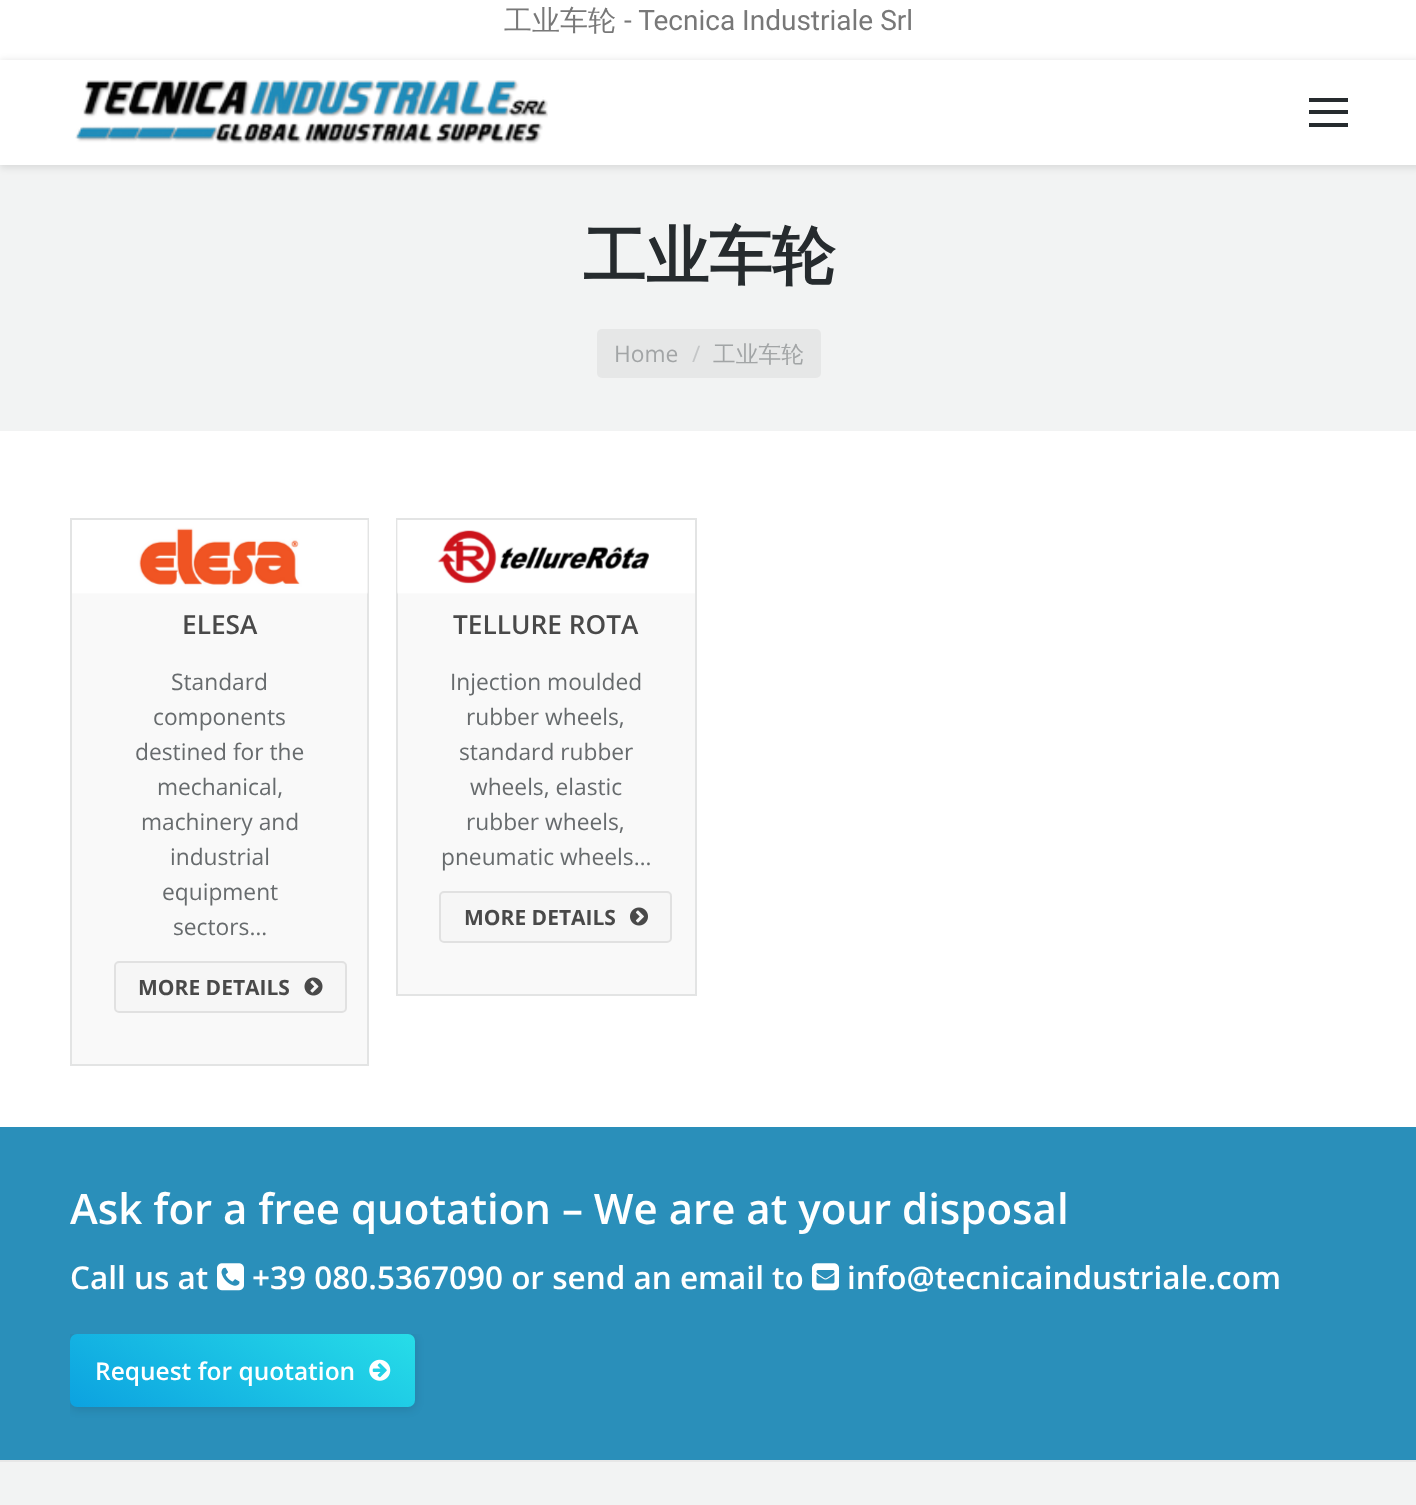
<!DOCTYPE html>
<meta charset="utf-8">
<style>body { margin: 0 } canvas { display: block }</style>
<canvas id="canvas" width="1416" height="1505"></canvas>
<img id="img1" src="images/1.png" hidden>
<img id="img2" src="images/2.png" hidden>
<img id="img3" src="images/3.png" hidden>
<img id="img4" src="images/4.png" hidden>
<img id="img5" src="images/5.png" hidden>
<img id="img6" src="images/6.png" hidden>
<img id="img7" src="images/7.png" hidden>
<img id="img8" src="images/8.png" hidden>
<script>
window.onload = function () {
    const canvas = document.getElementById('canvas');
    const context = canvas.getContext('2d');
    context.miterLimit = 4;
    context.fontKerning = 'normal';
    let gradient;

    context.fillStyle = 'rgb(255, 255, 255)';
    context.fillRect(0, 0, 1416, 1505);
    context.fillStyle = 'rgb(242, 243, 243)';
    context.fillRect(0, 165, 1416, 266);
    context.fillStyle = 'rgba(0, 0, 0, 0.1)';
    context.filter = 'blur(3.5px)';
    context.beginPath();
    context.rect(0, 60, 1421, 108);
    context.fill();
    context.filter = 'none';
    context.fillStyle = 'rgb(255, 255, 255)';
    context.fillRect(0, 60, 1416, 105);
    context.drawImage(document.getElementById('img1'), 75, 80, 473, 64);
    context.fillStyle = 'rgb(38, 43, 46)';
    context.fillRect(1309, 110, 39, 4);
    context.fillRect(1309, 98, 39, 4);
    context.fillRect(1309, 123, 39, 4);
    context.fillStyle = 'rgb(230, 231, 231)';
    context.beginPath();
    context.roundRect(597, 329, 224, 49, 5);
    context.fill();
    context.fillStyle = 'rgb(249, 249, 249)';
    context.beginPath();
    context.rect(71, 519, 297, 546);
    context.fill();
    context.strokeStyle = 'rgb(227, 228, 228)';
    context.lineWidth = 2;
    context.stroke();
    context.drawImage(document.getElementById('img2'), 72, 520, 296, 74);
    context.fillStyle = 'rgb(246, 246, 246)';
    context.beginPath();
    context.roundRect(115, 962, 231, 50, 4);
    context.fill();
    context.strokeStyle = 'rgb(225, 225, 225)';
    context.stroke();
    context.drawImage(document.getElementById('img3'), 304, 977, 19, 19);
    context.fillStyle = 'rgb(249, 249, 249)';
    context.fillRect(398, 592, 297, 402);
    context.strokeStyle = 'rgb(227, 228, 228)';
    context.strokeRect(397, 519, 299, 476);
    context.drawImage(document.getElementById('img4'), 397, 520, 298, 74);
    context.fillStyle = 'rgb(246, 246, 246)';
    context.beginPath();
    context.roundRect(440, 892, 231, 50, 4);
    context.fill();
    context.strokeStyle = 'rgb(225, 225, 225)';
    context.stroke();
    context.drawImage(document.getElementById('img5'), 630, 907, 18, 19);
    context.fillStyle = 'rgb(42, 143, 186)';
    context.fillRect(0, 1127, 1416, 333);
    context.drawImage(document.getElementById('img6'), 217, 1263, 27, 28);
    context.drawImage(document.getElementById('img7'), 812, 1263, 27, 28);
    context.save();
    context.beginPath();
    context.rect(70, 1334, 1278, 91);
    context.clip();
    context.fillStyle = 'rgba(0, 0, 0, 0.12)';
    context.filter = 'blur(5px)';
    context.beginPath();
    context.roundRect(70, 1335, 345, 74, 7);
    context.fill();
    context.filter = 'none';
    context.restore();
    gradient = context.createLinearGradient(183, 1472, 301, 1268);
    gradient.addColorStop(0, 'rgb(12, 162, 224)');
    gradient.addColorStop(1, 'rgb(39, 221, 232)');
    context.fillStyle = gradient;
    context.beginPath();
    context.roundRect(70, 1334, 345, 73, 7);
    context.fill();
    context.drawImage(document.getElementById('img8'), 369, 1359, 22, 22);
    context.fillStyle = 'rgb(242, 243, 243)';
    context.fillRect(0, 1462, 1416, 43);
    context.fillStyle = 'rgb(231, 231, 231)';
    context.fillRect(0, 1460, 1416, 2);
    context.font = '500 28px WenQuanYi Zen Hei';
    context.fillStyle = 'rgb(120, 120, 120)';
    context.fillText('工业车轮', 504, 30);
    context.font = '28px Roboto';
    context.fillText('- Tecnica Industriale Srl', 624, 30);
    context.font = 'bold 63px WenQuanYi Zen Hei';
    context.fillStyle = 'rgb(38, 43, 46)';
    context.fillText('工业车轮', 583, 278);
    context.font = '22.75px Open Sans';
    context.fillStyle = 'rgb(162, 165, 166)';
    context.fillText('Home', 614, 362);
    context.fillStyle = 'rgb(196, 198, 199)';
    context.fillText('/', 692, 362);
    context.font = '500 22.75px WenQuanYi Zen Hei';
    context.fillStyle = 'rgb(162, 165, 166)';
    context.fillText('工业车轮', 713, 362);
    context.font = '600 26.25px Open Sans';
    context.fillStyle = 'rgb(73, 73, 73)';
    context.fillText('ELESA', 182, 634);
    context.font = '22.75px Open Sans';
    context.fillStyle = 'rgb(103, 107, 109)';
    context.fillText('Standard', 171, 690);
    context.fillText('components', 153, 725);
    context.fillText('destined for the', 135, 760);
    context.fillText('mechanical,', 157, 795);
    context.fillText('machinery and', 141, 830);
    context.fillText('industrial', 170, 865);
    context.fillText('equipment', 162, 900);
    context.fillText('sectors…', 173, 935);
    context.font = 'bold 21px Open Sans';
    context.fillStyle = 'rgb(73, 73, 73)';
    context.fillText('MORE DETAILS', 138, 995);
    context.font = '600 26.25px Open Sans';
    context.fillText('TELLURE ROTA', 453, 634);
    context.font = '22.75px Open Sans';
    context.fillStyle = 'rgb(103, 107, 109)';
    context.fillText('Injection moulded', 450, 690);
    context.fillText('rubber wheels,', 466, 725);
    context.fillText('standard rubber', 459, 760);
    context.fillText('wheels, elastic', 470, 795);
    context.fillText('rubber wheels,', 466, 830);
    context.fillText('pneumatic wheels…', 441, 865);
    context.font = 'bold 21px Open Sans';
    context.fillStyle = 'rgb(73, 73, 73)';
    context.fillText('MORE DETAILS', 464, 925);
    context.font = '600 42px Open Sans';
    context.fillStyle = 'rgb(255, 255, 255)';
    context.fillText('Ask for a free quotation – We are at your disposal', 70, 1224);
    context.font = '600 31.5px Open Sans';
    context.fillText('Call us at', 70, 1289);
    context.fillText('+39 080.5367090 or send an email to', 252, 1289);
    context.fillText('info@tecnicaindustriale.com', 847, 1289);
    context.font = '600 24.5px Open Sans';
    context.fillText('Request for quotation', 95, 1380);
};
</script>
